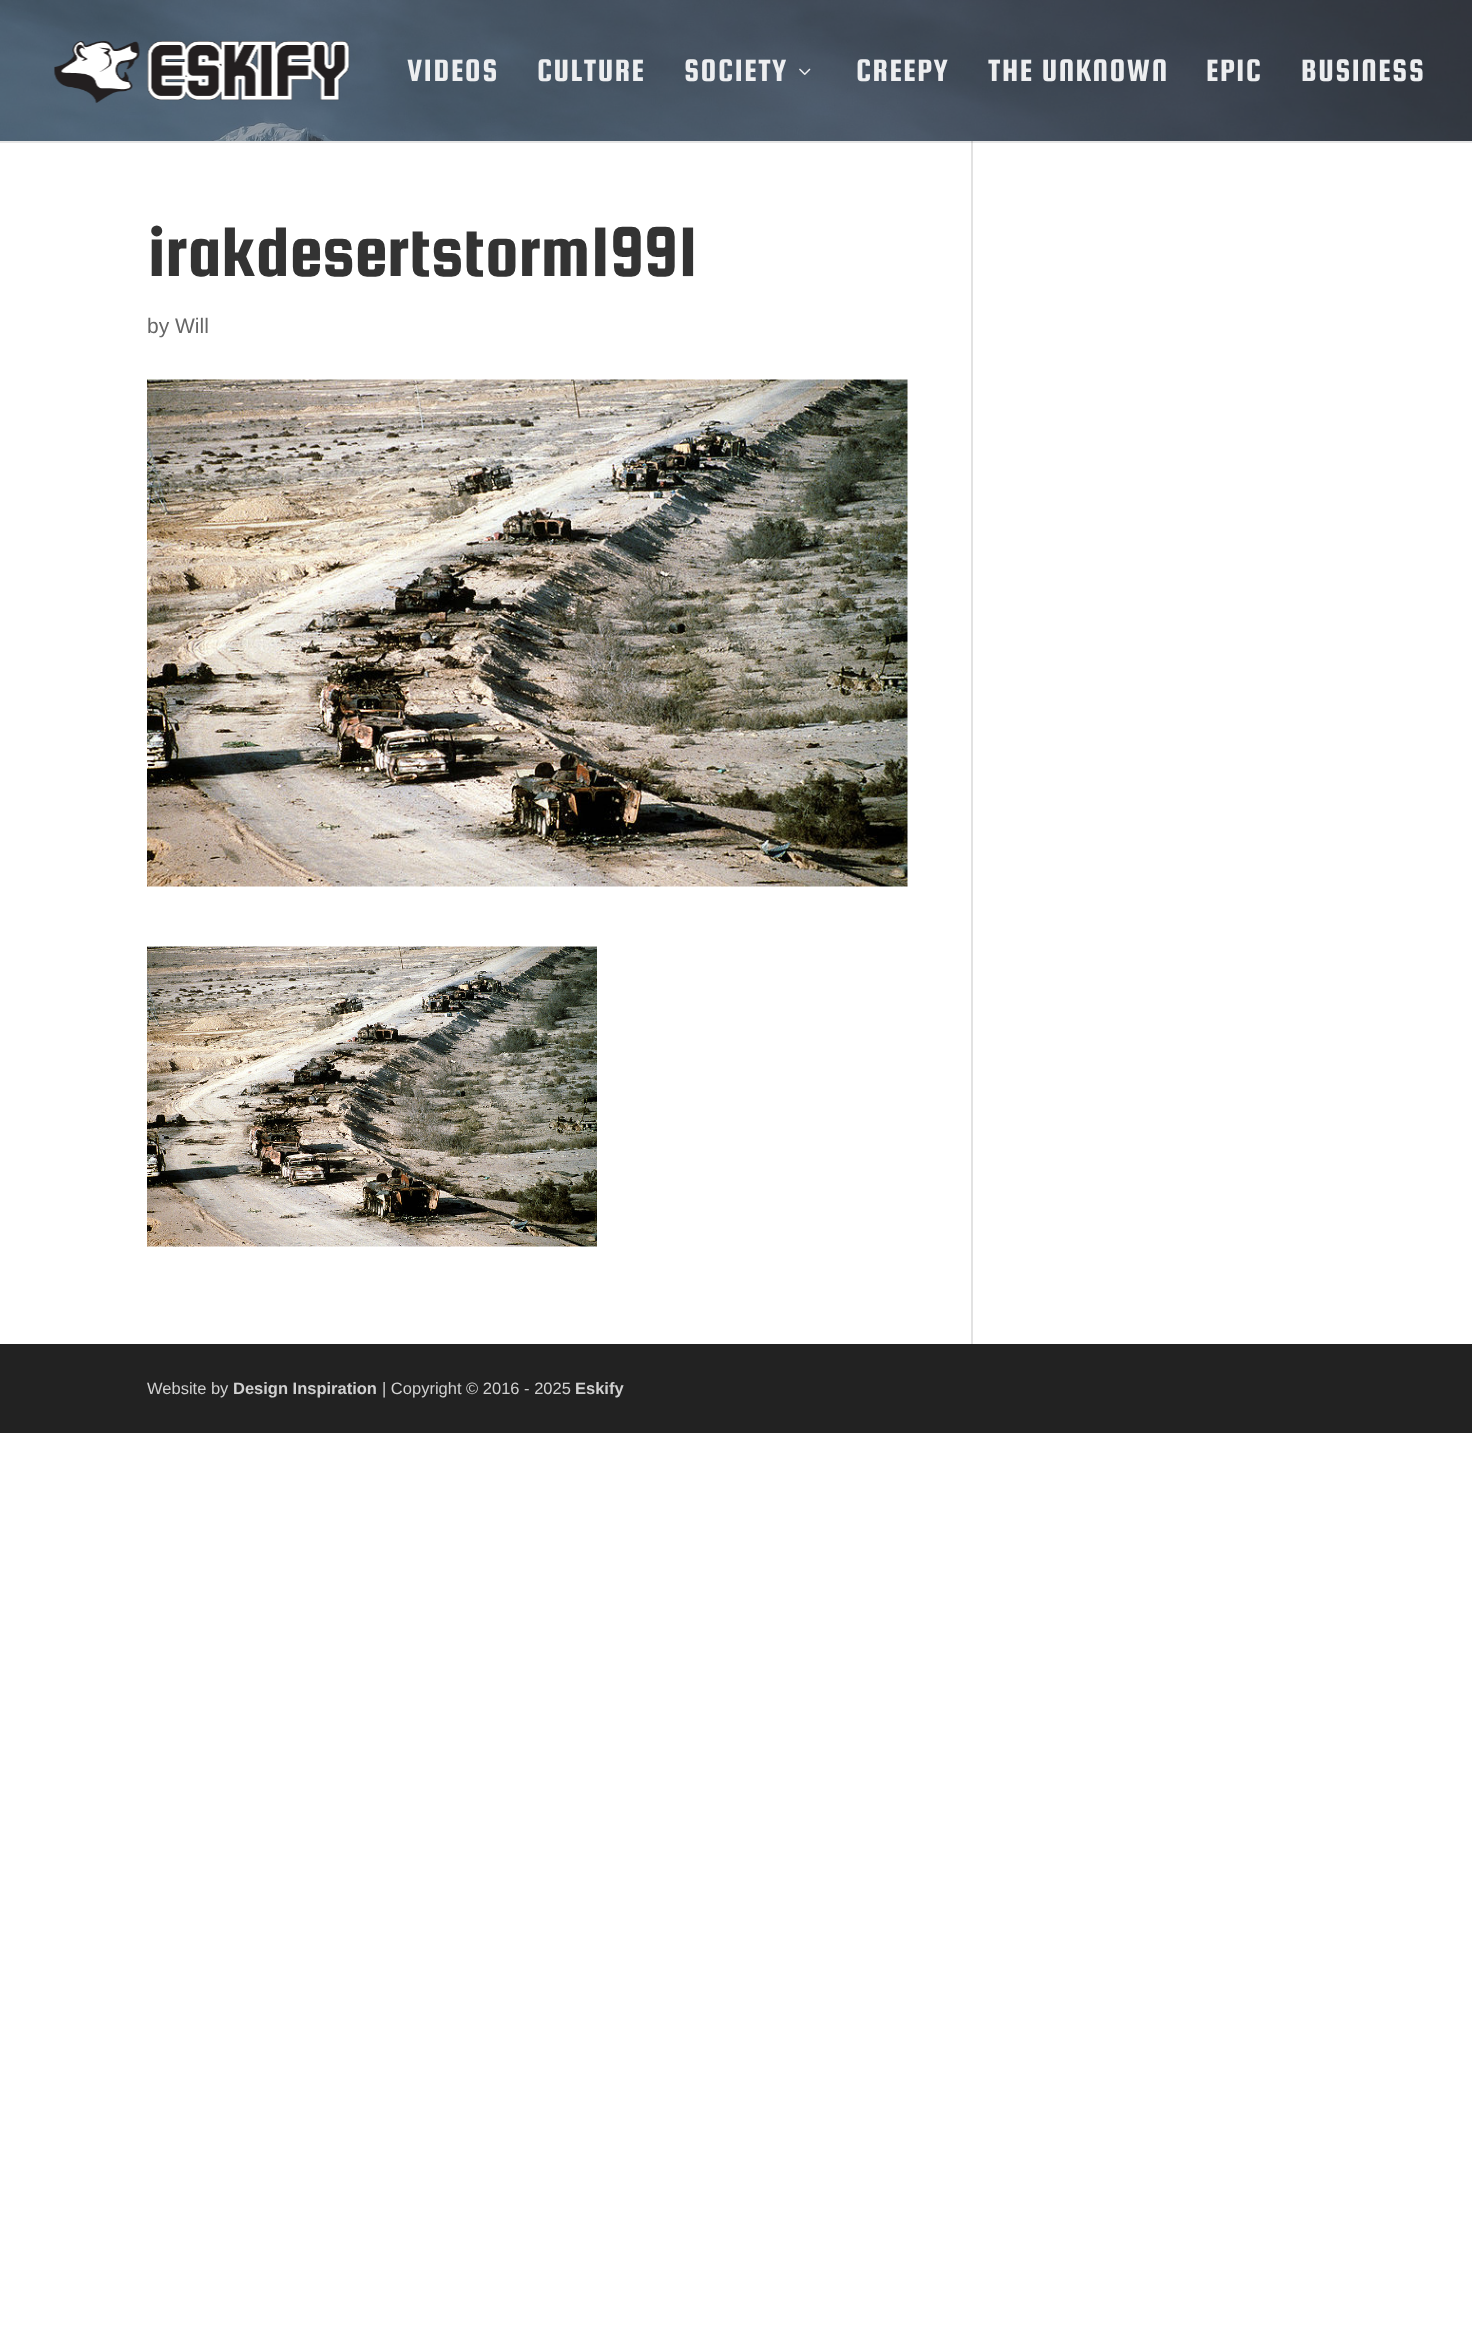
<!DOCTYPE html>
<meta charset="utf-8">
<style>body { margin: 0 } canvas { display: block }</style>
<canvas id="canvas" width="1472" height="2337"></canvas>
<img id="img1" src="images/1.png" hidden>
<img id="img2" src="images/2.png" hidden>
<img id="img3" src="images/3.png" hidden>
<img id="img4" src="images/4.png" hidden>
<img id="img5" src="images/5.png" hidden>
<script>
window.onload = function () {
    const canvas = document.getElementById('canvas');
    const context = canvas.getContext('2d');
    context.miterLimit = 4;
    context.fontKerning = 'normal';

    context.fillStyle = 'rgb(255, 255, 255)';
    context.fillRect(0, 0, 1472, 2337);
    context.fillStyle = 'rgb(230, 230, 230)';
    context.fillRect(0, 141, 1472, 2);
    context.fillStyle = 'rgb(91, 91, 91)';
    context.fillRect(0, 0, 1472, 141);
    context.drawImage(document.getElementById('img1'), 0, 0, 1472, 141);
    context.drawImage(document.getElementById('img2'), 54, 41, 296, 62);
    context.drawImage(document.getElementById('img3'), 799, 68, 12, 7);
    context.drawImage(document.getElementById('img4'), 147, 379, 761, 508);
    context.drawImage(document.getElementById('img5'), 147, 946, 450, 301);
    context.fillStyle = 'rgb(226, 226, 226)';
    context.fillRect(971, 143, 2, 1201);
    context.fillStyle = 'rgb(203, 203, 203)';
    context.fillRect(971, 141, 2, 2);
    context.fillStyle = 'rgb(34, 34, 34)';
    context.fillRect(0, 1344, 1472, 89);
    context.letterSpacing = '1.5px';
    context.font = '33px Squada One';
    context.fillStyle = 'rgb(237, 238, 240)';
    context.fillText('VIDEOS', 407, 81);
    context.fillText('CULTURE', 537, 81);
    context.fillText('SOCIETY', 684, 81);
    context.fillText('CREEPY', 856, 81);
    context.fillText('THE UNKNOWN', 988, 81);
    context.fillText('EPIC', 1206, 81);
    context.fillText('BUSINESS', 1301, 81);
    context.letterSpacing = '0px';
    context.font = '75px Squada One';
    context.fillStyle = 'rgb(51, 51, 51)';
    context.fillText('irakdesertstorm1991', 147, 276);
    context.font = '21px Liberation Sans';
    context.fillStyle = 'rgb(102, 102, 102)';
    context.fillText('by Will', 147, 333);
    context.font = '16.5px Liberation Sans';
    context.fillStyle = 'rgb(209, 209, 209)';
    context.fillText('Website by', 147, 1394);
    context.font = 'bold 16.5px Liberation Sans';
    context.fillText('Design Inspiration', 233, 1394);
    context.font = '16.5px Liberation Sans';
    context.fillText('| Copyright © 2016 - 2025', 382, 1394);
    context.font = 'bold 16.5px Liberation Sans';
    context.fillText('Eskify', 575, 1394);
};
</script>
